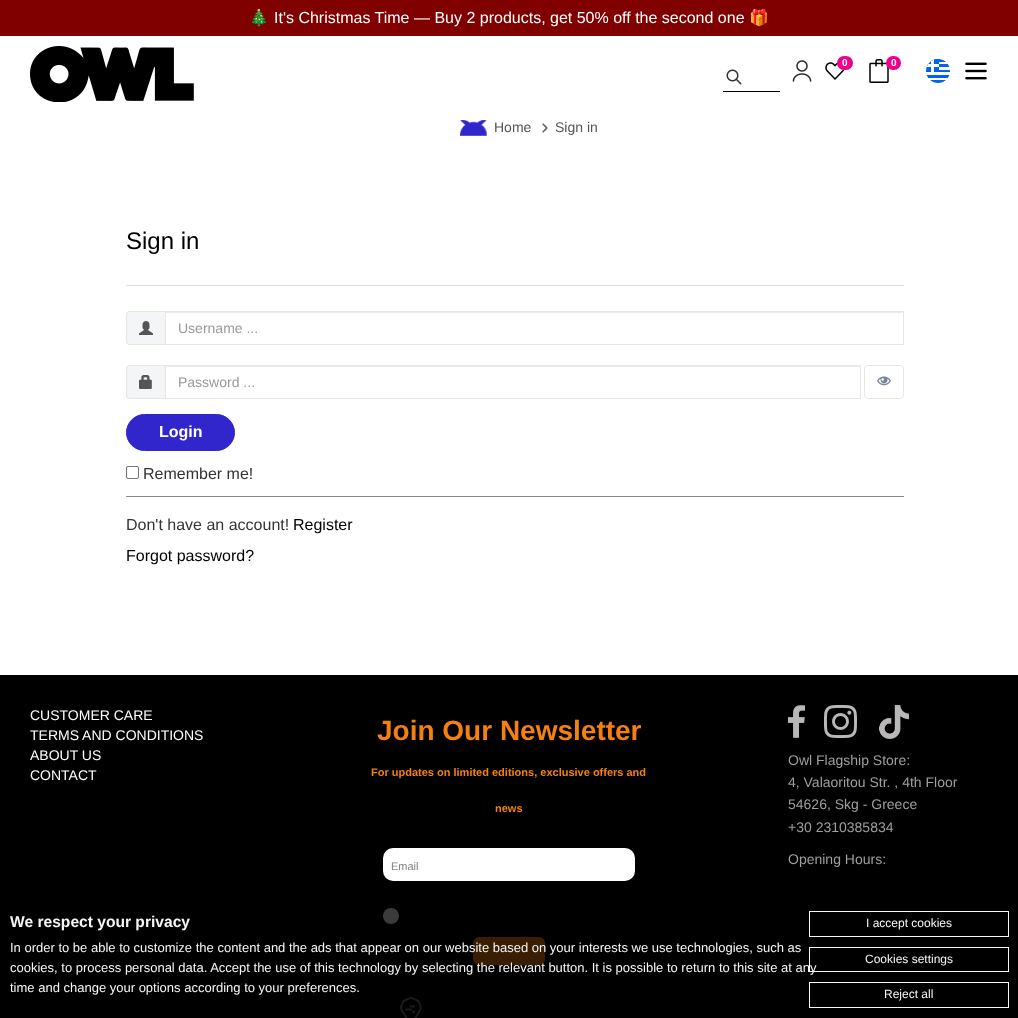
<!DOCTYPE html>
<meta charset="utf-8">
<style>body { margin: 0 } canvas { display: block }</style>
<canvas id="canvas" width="1018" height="1018"></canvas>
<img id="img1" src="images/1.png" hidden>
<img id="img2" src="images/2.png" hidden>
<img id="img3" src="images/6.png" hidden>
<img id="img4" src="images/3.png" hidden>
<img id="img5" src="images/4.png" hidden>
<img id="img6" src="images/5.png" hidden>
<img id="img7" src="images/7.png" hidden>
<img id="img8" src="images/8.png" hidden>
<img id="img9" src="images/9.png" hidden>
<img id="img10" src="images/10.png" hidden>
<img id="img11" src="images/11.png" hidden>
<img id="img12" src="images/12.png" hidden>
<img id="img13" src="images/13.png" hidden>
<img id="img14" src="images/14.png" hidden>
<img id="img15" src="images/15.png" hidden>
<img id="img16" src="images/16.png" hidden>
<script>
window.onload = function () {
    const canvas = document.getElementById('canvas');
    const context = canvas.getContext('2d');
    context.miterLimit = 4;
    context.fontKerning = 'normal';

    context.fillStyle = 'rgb(255, 255, 255)';
    context.fillRect(0, 0, 1018, 1018);
    context.fillStyle = 'rgb(128, 0, 0)';
    context.fillRect(0, 0, 1018, 36);
    context.drawImage(document.getElementById('img1'), 30, 46, 164, 56);
    context.drawImage(document.getElementById('img2'), 792, 60, 20, 22);
    context.drawImage(document.getElementById('img3'), 825, 62, 20, 18);
    context.fillStyle = 'rgb(236, 0, 140)';
    context.beginPath();
    context.roundRect(837, 56, 16, 14, 7);
    context.fill();
    context.drawImage(document.getElementById('img4'), 869, 59, 20, 24);
    context.beginPath();
    context.roundRect(886, 56, 15, 14, 7);
    context.fill();
    context.drawImage(document.getElementById('img5'), 926, 59, 24, 24);
    context.fillStyle = 'rgb(0, 0, 0)';
    context.fillRect(723, 91, 57, 1);
    context.drawImage(document.getElementById('img6'), 726, 69, 16, 16);
    context.drawImage(document.getElementById('img7'), 965, 62, 22, 18);
    context.drawImage(document.getElementById('img8'), 460, 120, 27, 16);
    context.drawImage(document.getElementById('img9'), 542, 123, 6, 10);
    context.fillStyle = 'rgb(222, 222, 222)';
    context.fillRect(126, 285, 778, 1);
    context.fillStyle = 'rgb(243, 245, 246)';
    context.beginPath();
    context.roundRect(126, 311, 39, 34, [4, 0, 0, 4]);
    context.fill();
    context.fillStyle = 'rgb(231, 231, 226)';
    context.beginPath();
    context.moveTo(130, 311);
    context.lineTo(165, 311);
    context.lineTo(165, 345);
    context.lineTo(130, 345);
    context.bezierCurveTo(128, 345, 126, 343, 126, 341);
    context.lineTo(126, 315);
    context.bezierCurveTo(126, 313, 128, 311, 130, 311);
    context.closePath();
    context.moveTo(130, 312);
    context.lineTo(165, 312);
    context.lineTo(165, 344);
    context.lineTo(130, 344);
    context.bezierCurveTo(128.5, 344, 127, 342.5, 127, 341);
    context.lineTo(127, 315);
    context.bezierCurveTo(127, 313.5, 128.5, 312, 130, 312);
    context.closePath();
    context.fill('evenodd');
    context.drawImage(document.getElementById('img10'), 139, 321, 14, 14);
    context.fillStyle = 'rgb(236, 236, 236)';
    context.fillRect(166, 312, 737, 1);
    context.strokeStyle = 'rgb(231, 231, 226)';
    context.strokeRect(165.5, 311.5, 738, 33);
    context.fillStyle = 'rgb(243, 245, 246)';
    context.beginPath();
    context.roundRect(126, 365, 39, 34, [4, 0, 0, 4]);
    context.fill();
    context.fillStyle = 'rgb(231, 231, 226)';
    context.beginPath();
    context.moveTo(130, 365);
    context.lineTo(165, 365);
    context.lineTo(165, 399);
    context.lineTo(130, 399);
    context.bezierCurveTo(128, 399, 126, 397, 126, 395);
    context.lineTo(126, 369);
    context.bezierCurveTo(126, 367, 128, 365, 130, 365);
    context.closePath();
    context.moveTo(130, 366);
    context.lineTo(165, 366);
    context.lineTo(165, 398);
    context.lineTo(130, 398);
    context.bezierCurveTo(128.5, 398, 127, 396.5, 127, 395);
    context.lineTo(127, 369);
    context.bezierCurveTo(127, 367.5, 128.5, 366, 130, 366);
    context.closePath();
    context.fill('evenodd');
    context.drawImage(document.getElementById('img11'), 139, 375, 13, 14);
    context.fillStyle = 'rgb(236, 236, 236)';
    context.fillRect(166, 366, 694, 1);
    context.strokeRect(165.5, 365.5, 695, 33);
    context.beginPath();
    context.roundRect(864.5, 365.5, 39, 33, 3.5);
    context.stroke();
    context.drawImage(document.getElementById('img12'), 877, 376, 14, 10);
    context.fillStyle = 'rgb(49, 38, 203)';
    context.beginPath();
    context.roundRect(126.5, 414.5, 108, 36, 18);
    context.fill();
    context.strokeStyle = 'rgb(49, 38, 203)';
    context.stroke();
    context.beginPath();
    context.roundRect(126.5, 466.5, 12, 12, 1.5);
    context.strokeStyle = 'rgb(118, 118, 118)';
    context.stroke();
    context.fillStyle = 'rgb(136, 136, 136)';
    context.fillRect(126, 496, 778, 1);
    context.fillStyle = 'rgb(0, 0, 0)';
    context.fillRect(0, 675, 1018, 343);
    context.fillStyle = 'rgb(255, 255, 255)';
    context.beginPath();
    context.roundRect(383, 848, 252, 33, 10);
    context.fill();
    context.beginPath();
    context.arc(391, 916, 8, 0, 2 * Math.PI);
    context.fill();
    context.fillStyle = 'rgb(244, 129, 15)';
    context.beginPath();
    context.roundRect(473, 937, 72, 28, 6);
    context.fill();
    context.drawImage(document.getElementById('img13'), 788, 705, 17, 33);
    context.drawImage(document.getElementById('img14'), 824, 705, 33, 33);
    context.drawImage(document.getElementById('img15'), 879, 704, 31, 35);
    context.drawImage(document.getElementById('img16'), 400, 997, 22, 21);
    context.fillStyle = 'rgba(0, 0, 0, 0.77)';
    context.fillRect(383, 908, 162, 110);
    context.strokeStyle = 'rgb(246, 246, 246)';
    context.strokeRect(809.5, 911.5, 199, 25);
    context.strokeRect(809.5, 947.5, 199, 24);
    context.strokeRect(809.5, 982.5, 199, 25);
    context.font = '16px Noto Color Emoji';
    context.fillStyle = 'rgb(255, 255, 255)';
    context.fillText('🎄', 249, 23);
    context.font = '16px Liberation Sans';
    context.fillText('It\'s Christmas Time — Buy 2 products, get 50% off the second one', 274, 23);
    context.font = '16px Noto Color Emoji';
    context.fillText('🎁', 749, 23);
    context.font = 'bold 10px Liberation Sans';
    context.fillText('0', 842, 66);
    context.fillText('0', 891, 66);
    context.font = '14px Liberation Sans';
    context.fillStyle = 'rgb(85, 85, 85)';
    context.fillText('Home', 494, 132);
    context.fillText('Sign in', 555, 132);
    context.font = '24px Liberation Sans';
    context.fillStyle = 'rgb(0, 0, 0)';
    context.fillText('Sign in', 126, 249);
    context.font = '14px Liberation Sans';
    context.fillStyle = 'rgb(153, 153, 153)';
    context.fillText('Username ...', 178, 333);
    context.fillText('Password ...', 178, 387);
    context.font = 'bold 16px Liberation Sans';
    context.fillStyle = 'rgb(255, 255, 255)';
    context.fillText('Login', 159, 437);
    context.font = '16px Liberation Sans';
    context.fillStyle = 'rgb(51, 51, 51)';
    context.fillText('Remember me!', 143, 479);
    context.fillText('Don\'t have an account!', 126, 530);
    context.fillStyle = 'rgb(0, 0, 0)';
    context.fillText('Register', 293, 530);
    context.fillText('Forgot password?', 126, 561);
    context.font = '14px Liberation Sans';
    context.fillStyle = 'rgb(255, 255, 255)';
    context.fillText('CUSTOMER CARE', 30, 720);
    context.fillText('TERMS AND CONDITIONS', 30, 740);
    context.fillText('ABOUT US', 30, 760);
    context.fillText('CONTACT', 30, 780);
    context.font = 'bold 28px Liberation Sans';
    context.fillStyle = 'rgb(244, 129, 15)';
    context.fillText('Join Our Newsletter', 377, 740);
    context.font = 'bold 11px Liberation Sans';
    context.fillText('For updates on limited editions, exclusive offers and', 371, 776);
    context.fillText('news', 495, 812);
    context.font = '11px Liberation Sans';
    context.fillStyle = 'rgb(128, 128, 128)';
    context.fillText('Email', 391, 870);
    context.font = '14px Liberation Sans';
    context.fillStyle = 'rgb(159, 159, 159)';
    context.fillText('Owl Flagship Store:', 788, 765);
    context.fillText('4, Valaoritou Str. , 4th Floor', 788, 787);
    context.fillText('54626, Skg - Greece', 788, 809);
    context.fillText('+30 2310385834', 788, 832);
    context.fillText('Opening Hours:', 788, 864);
    context.font = 'bold 15.6px Liberation Sans';
    context.fillStyle = 'rgb(246, 246, 246)';
    context.fillText('We respect your privacy', 10, 927);
    context.font = '12px Liberation Sans';
    context.fillText('I accept cookies', 866, 927);
    context.fillText('Cookies settings', 865, 963);
    context.fillText('Reject all', 884, 998);
    context.font = '13px Liberation Sans';
    context.fillText('In order to be able to customize the content and the ads that appear on our website based on your interests we use technologies, such as', 10, 952);
    context.fillText('cookies, to process personal data. Accept the use of this technology by selecting the relevant button. It is possible to return to this site at any', 10, 972);
    context.fillText('time and change your options according to your preferences.', 10, 992);
};
</script>
